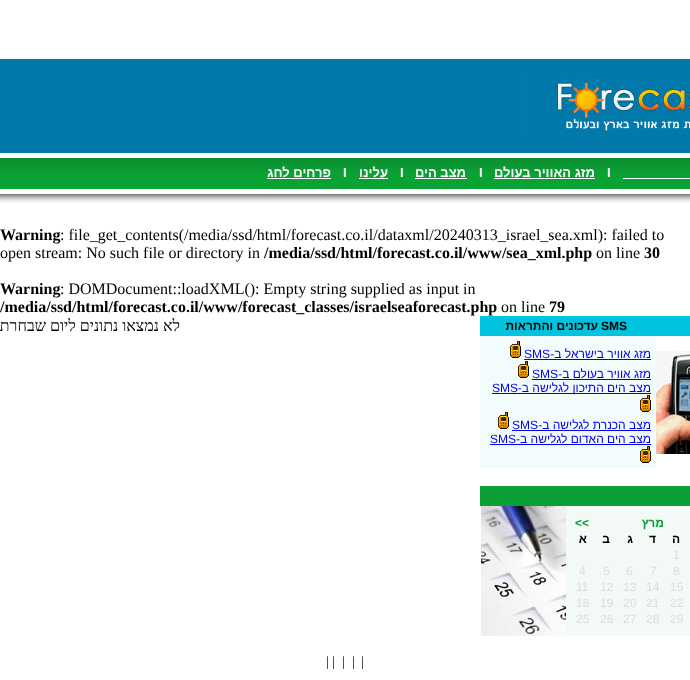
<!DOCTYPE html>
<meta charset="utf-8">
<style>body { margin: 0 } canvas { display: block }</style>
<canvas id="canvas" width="690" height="680"></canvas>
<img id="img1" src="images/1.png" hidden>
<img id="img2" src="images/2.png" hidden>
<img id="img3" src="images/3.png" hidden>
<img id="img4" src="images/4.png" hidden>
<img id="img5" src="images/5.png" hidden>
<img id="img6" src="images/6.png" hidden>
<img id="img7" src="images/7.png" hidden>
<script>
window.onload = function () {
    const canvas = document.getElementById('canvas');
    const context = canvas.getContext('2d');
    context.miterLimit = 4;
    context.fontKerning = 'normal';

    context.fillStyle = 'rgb(255, 255, 255)';
    context.fillRect(0, 0, 690, 680);
    context.fillStyle = 'rgb(1, 121, 171)';
    context.fillRect(0, 59, 690, 94);
    context.drawImage(document.getElementById('img1'), 520, 74, 170, 60);
    context.drawImage(document.getElementById('img2'), 0, 158, 66, 31);
    context.drawImage(document.getElementById('img3'), 66, 158, 624, 31);
    context.fillStyle = 'rgb(255, 255, 255)';
    context.fillRect(267, 178, 64, 1);
    context.fillRect(359, 178, 29, 1);
    context.fillRect(415, 178, 52, 1);
    context.fillRect(494, 178, 101, 1);
    context.fillRect(623, 178, 67, 1);
    context.drawImage(document.getElementById('img4'), 0, 194, 690, 9);
    context.fillStyle = 'rgb(0, 196, 222)';
    context.fillRect(480, 316, 210, 20);
    context.fillStyle = 'rgb(242, 252, 253)';
    context.fillRect(480, 336, 176, 132);
    context.drawImage(document.getElementById('img5'), 510, 341, 11, 17);
    context.fillStyle = 'rgb(0, 0, 238)';
    context.fillRect(524, 359, 127, 1);
    context.drawImage(document.getElementById('img5'), 518, 361, 11, 17);
    context.fillRect(532, 379, 119, 1);
    context.fillRect(492, 393, 159, 1);
    context.drawImage(document.getElementById('img5'), 640, 395, 11, 17);
    context.drawImage(document.getElementById('img5'), 498, 412, 11, 17);
    context.fillRect(512, 430, 139, 1);
    context.fillRect(490, 444, 161, 1);
    context.drawImage(document.getElementById('img5'), 640, 446, 11, 17);
    context.drawImage(document.getElementById('img6'), 656, 351, 34, 103);
    context.fillStyle = 'rgb(10, 160, 53)';
    context.fillRect(480, 486, 210, 20);
    context.drawImage(document.getElementById('img7'), 480, 506, 86, 130);
    context.fillStyle = 'rgb(243, 249, 245)';
    context.fillRect(566, 506, 124, 130);
    context.direction = 'rtl';
    context.font = 'bold 13px Liberation Sans';
    context.fillStyle = 'rgb(255, 255, 255)';
    context.fillText('פרחים לחג', 331, 177);
    context.direction = 'ltr';
    context.fillText('I', 343, 177);
    context.direction = 'rtl';
    context.fillText('עלינו', 388, 177);
    context.direction = 'ltr';
    context.fillText('I', 400, 177);
    context.direction = 'rtl';
    context.fillText('מצב הים', 466, 177);
    context.direction = 'ltr';
    context.fillText('I', 479, 177);
    context.direction = 'rtl';
    context.fillText('מזג האוויר בעולם', 595, 177);
    context.direction = 'ltr';
    context.fillText('I', 607, 177);
    context.font = 'bold 16px Liberation Serif';
    context.fillStyle = 'rgb(0, 0, 0)';
    context.fillText('Warning', 0, 240);
    context.font = '16px Liberation Serif';
    context.fillText(': file_get_contents(/media/ssd/html/forecast.co.il/dataxml/20240313_israel_sea.xml): failed to', 60, 240);
    context.fillText('open stream: No such file or directory in', 0, 258);
    context.font = 'bold 16px Liberation Serif';
    context.fillText('/media/ssd/html/forecast.co.il/www/sea_xml.php', 264, 258);
    context.font = '16px Liberation Serif';
    context.fillText('on line', 596, 258);
    context.font = 'bold 16px Liberation Serif';
    context.fillText('30', 644, 258);
    context.fillText('Warning', 0, 294);
    context.font = '16px Liberation Serif';
    context.fillText(': DOMDocument::loadXML(): Empty string supplied as input in', 60, 294);
    context.font = 'bold 16px Liberation Serif';
    context.fillText('/media/ssd/html/forecast.co.il/www/forecast_classes/israelseaforecast.php', 0, 312);
    context.font = '16px Liberation Serif';
    context.fillText('on line', 501, 312);
    context.font = 'bold 16px Liberation Serif';
    context.fillText('79', 549, 312);
    context.direction = 'rtl';
    context.font = '16px Liberation Serif';
    context.fillText('לא נמצאו נתונים ליום שבחרת', 180, 331);
    context.font = 'bold 12px Liberation Sans';
    context.fillText('עדכונים והתראות', 598, 330);
    context.direction = 'ltr';
    context.fillText('SMS', 601, 330);
    context.font = '12px Liberation Sans';
    context.fillStyle = 'rgb(0, 0, 238)';
    context.fillText('SMS', 524, 358);
    context.direction = 'rtl';
    context.fillText('מזג אוויר בישראל ב-', 651, 358);
    context.direction = 'ltr';
    context.fillText('SMS', 532, 378);
    context.direction = 'rtl';
    context.fillText('מזג אוויר בעולם ב-', 651, 378);
    context.direction = 'ltr';
    context.fillText('SMS', 492, 392);
    context.direction = 'rtl';
    context.fillText('מצב הים התיכון לגלישה ב-', 651, 392);
    context.direction = 'ltr';
    context.fillText('SMS', 512, 429);
    context.direction = 'rtl';
    context.fillText('מצב הכנרת לגלישה ב-', 651, 429);
    context.direction = 'ltr';
    context.fillText('SMS', 490, 443);
    context.direction = 'rtl';
    context.fillText('מצב הים האדום לגלישה ב-', 651, 443);
    context.direction = 'ltr';
    context.font = 'bold 12px Liberation Sans';
    context.fillStyle = 'rgb(10, 160, 53)';
    context.fillText('<<', 575, 527);
    context.direction = 'rtl';
    context.fillText('מרץ', 664, 527);
    context.fillStyle = 'rgb(0, 0, 0)';
    context.fillText('א', 587, 543);
    context.fillText('ב', 610, 543);
    context.fillText('ג', 633, 543);
    context.fillText('ד', 656, 543);
    context.fillText('ה', 680, 543);
    context.direction = 'ltr';
    context.font = '12px Liberation Sans';
    context.fillStyle = 'rgb(221, 221, 221)';
    context.fillText('1', 673, 559);
    context.fillText('4', 579, 575);
    context.fillText('5', 603, 575);
    context.fillText('6', 626, 575);
    context.fillText('7', 650, 575);
    context.fillText('8', 673, 575);
    context.fillText('11', 576, 591);
    context.fillText('12', 600, 591);
    context.fillText('13', 623, 591);
    context.fillText('14', 646, 591);
    context.fillText('15', 670, 591);
    context.fillText('18', 576, 607);
    context.fillText('19', 600, 607);
    context.fillText('20', 623, 607);
    context.fillText('21', 646, 607);
    context.fillText('22', 670, 607);
    context.fillText('25', 576, 623);
    context.fillText('26', 600, 623);
    context.fillText('27', 623, 623);
    context.fillText('28', 646, 623);
    context.fillText('29', 670, 623);
    context.font = '14px Liberation Serif';
    context.fillStyle = 'rgb(0, 0, 0)';
    context.fillText('|', 326, 666);
    context.fillText('|', 332, 666);
    context.fillText('|', 342, 666);
    context.fillText('|', 352, 666);
    context.fillText('|', 361, 666);
};
</script>
